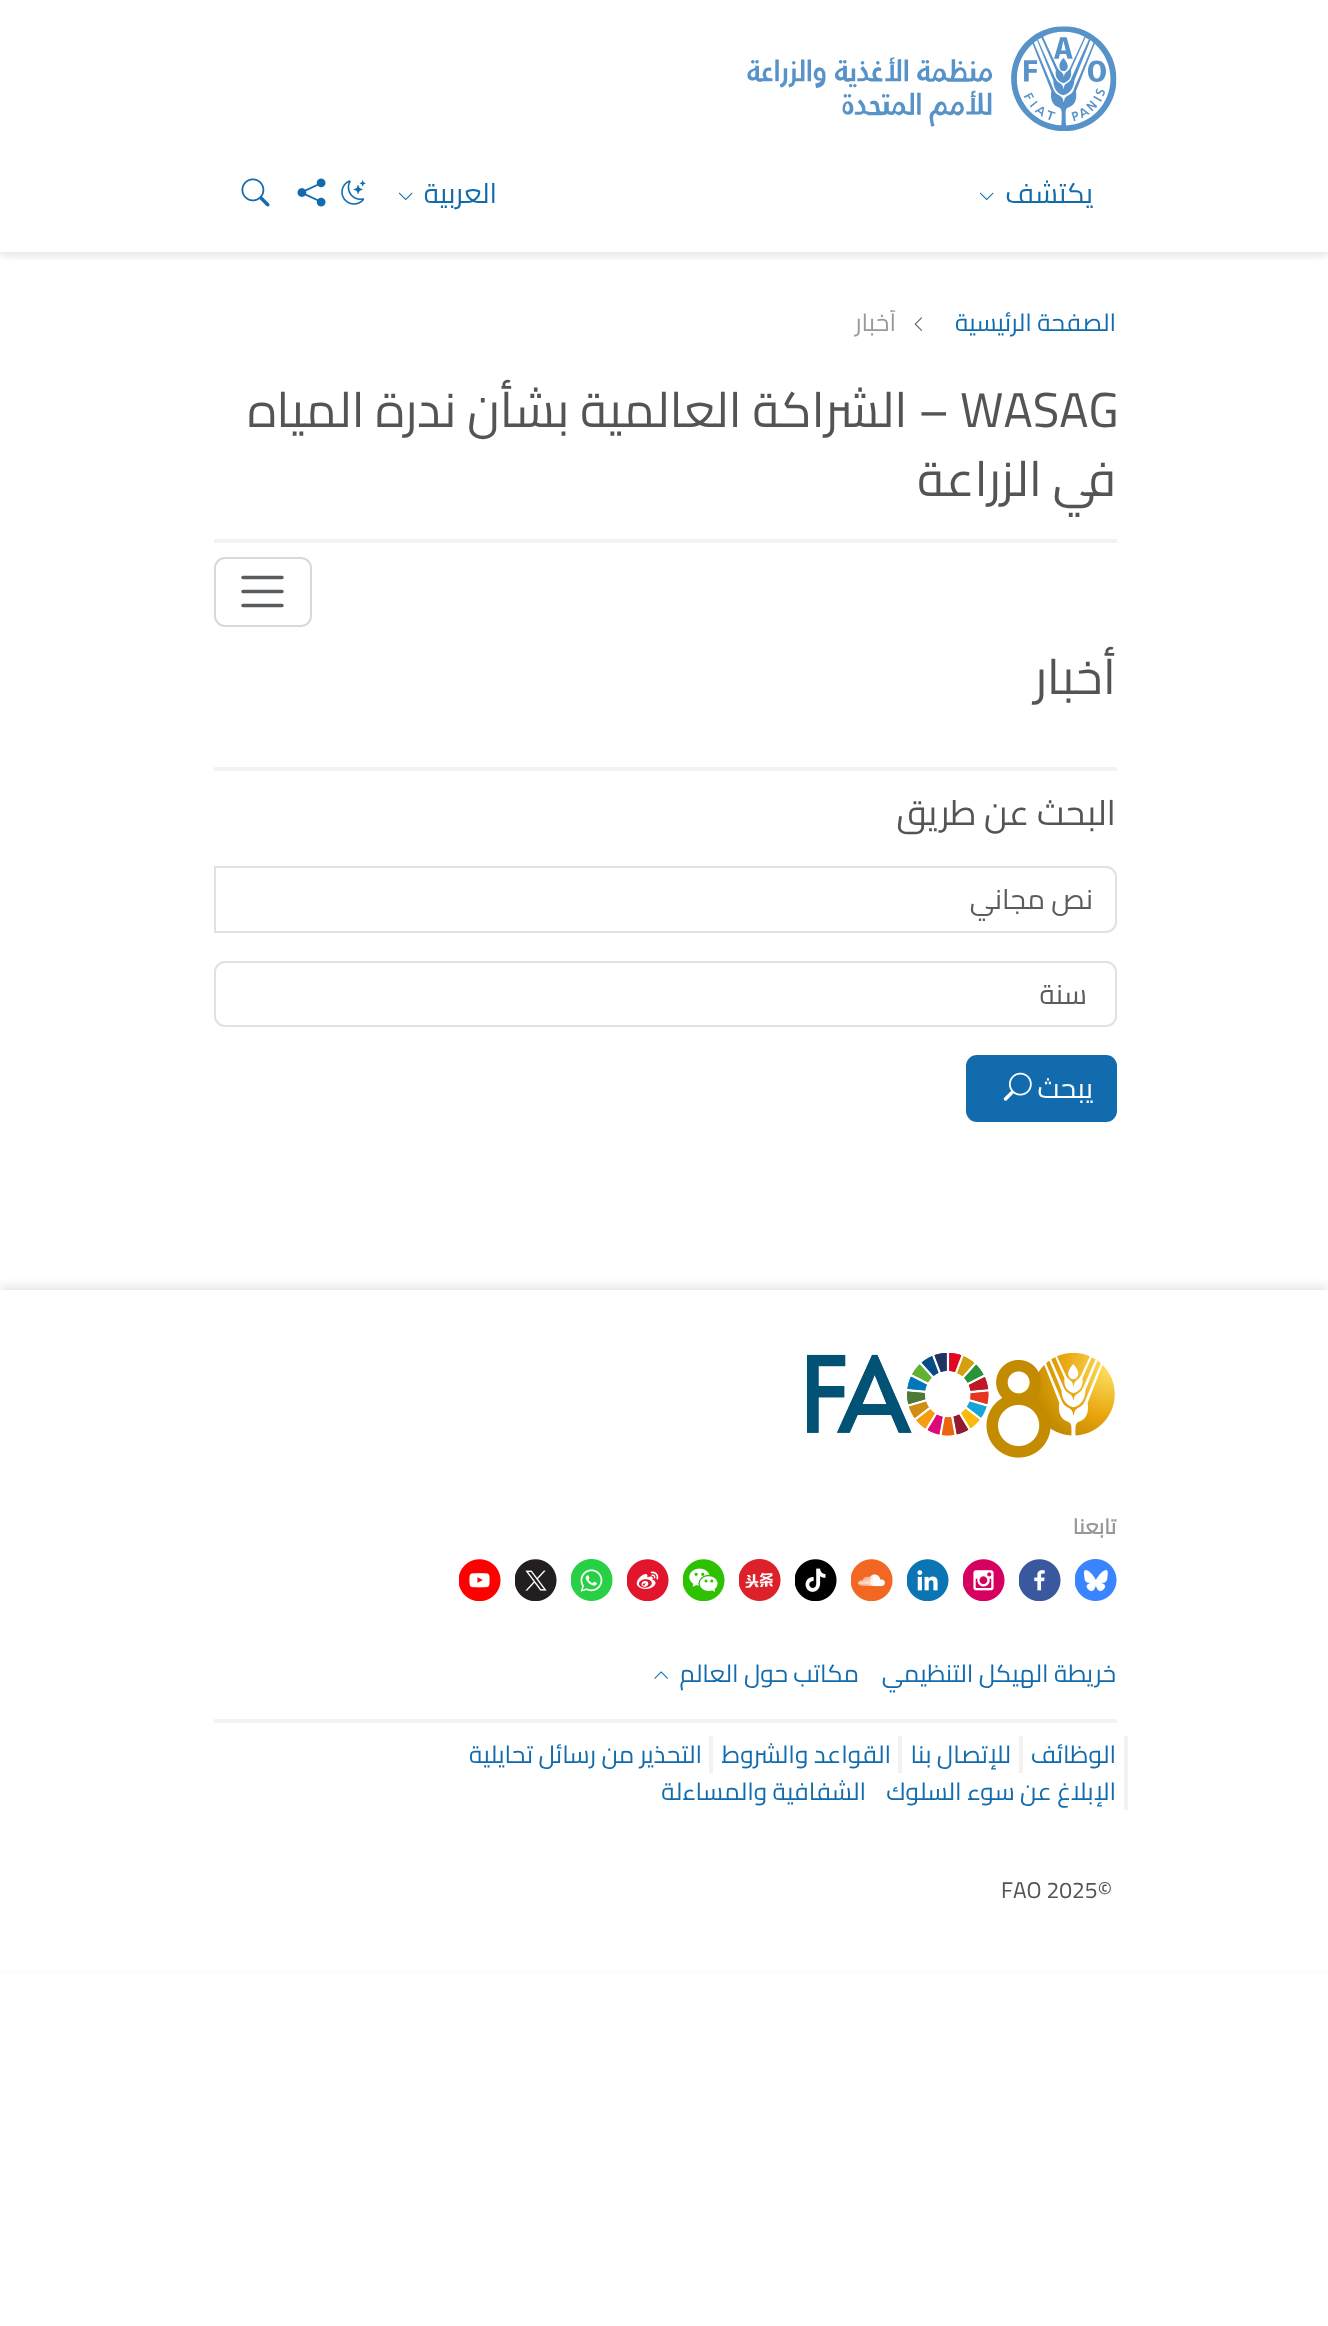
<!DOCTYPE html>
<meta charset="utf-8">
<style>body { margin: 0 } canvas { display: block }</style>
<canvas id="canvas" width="1328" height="2326"></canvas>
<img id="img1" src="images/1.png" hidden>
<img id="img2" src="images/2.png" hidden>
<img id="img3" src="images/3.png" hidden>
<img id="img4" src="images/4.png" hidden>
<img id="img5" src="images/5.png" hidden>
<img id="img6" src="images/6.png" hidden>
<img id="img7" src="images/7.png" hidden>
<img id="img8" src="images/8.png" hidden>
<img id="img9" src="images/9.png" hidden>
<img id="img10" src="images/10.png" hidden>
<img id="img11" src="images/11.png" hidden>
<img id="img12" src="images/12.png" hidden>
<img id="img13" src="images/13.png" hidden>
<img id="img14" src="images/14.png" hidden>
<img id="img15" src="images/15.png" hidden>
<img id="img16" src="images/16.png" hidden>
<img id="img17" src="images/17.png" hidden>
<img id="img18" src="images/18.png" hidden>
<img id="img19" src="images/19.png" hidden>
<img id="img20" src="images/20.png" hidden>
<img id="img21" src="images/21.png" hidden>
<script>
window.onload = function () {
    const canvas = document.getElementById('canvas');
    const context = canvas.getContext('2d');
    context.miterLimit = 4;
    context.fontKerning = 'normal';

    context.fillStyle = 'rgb(255, 255, 255)';
    context.fillRect(0, 0, 1328, 2326);
    context.save();
    context.beginPath();
    context.rect(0, 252, 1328, 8);
    context.clip();
    context.fillStyle = 'rgba(0, 0, 0, 0.1)';
    context.filter = 'blur(5px)';
    context.beginPath();
    context.rect(0, 4, 1328, 252);
    context.fill();
    context.filter = 'none';
    context.restore();
    context.drawImage(document.getElementById('img1'), 747, 26, 370, 105);
    context.drawImage(document.getElementById('img2'), 979, 192, 15, 8);
    context.drawImage(document.getElementById('img2'), 398, 192, 15, 8);
    context.drawImage(document.getElementById('img3'), 341, 180, 25, 25);
    context.drawImage(document.getElementById('img4'), 297, 178, 29, 29);
    context.drawImage(document.getElementById('img5'), 241, 178, 29, 29);
    context.drawImage(document.getElementById('img6'), 914, 317, 8, 14);
    context.fillStyle = 'rgb(242, 242, 242)';
    context.fillRect(214, 539, 903, 4);
    context.beginPath();
    context.roundRect(215, 558, 96, 68, 10);
    context.strokeStyle = 'rgb(217, 217, 217)';
    context.lineWidth = 2;
    context.stroke();
    context.beginPath();
    context.moveTo(243, 577.5);
    context.lineTo(282, 577.5);
    context.moveTo(243, 591.5);
    context.lineTo(282, 591.5);
    context.moveTo(243, 605.5);
    context.lineTo(282, 605.5);
    context.strokeStyle = 'rgb(89, 92, 95)';
    context.lineWidth = 3.5;
    context.lineCap = 'round';
    context.stroke();
    context.fillRect(214, 767, 903, 4);
    context.beginPath();
    context.roundRect(215, 867, 901, 65, [0, 10, 10, 0]);
    context.strokeStyle = 'rgb(222, 226, 230)';
    context.lineWidth = 2;
    context.stroke();
    context.beginPath();
    context.roundRect(215, 962, 901, 64, 10);
    context.stroke();
    context.fillStyle = 'rgb(17, 107, 172)';
    context.beginPath();
    context.roundRect(967, 1056, 149, 65, 10);
    context.fill();
    context.strokeStyle = 'rgb(17, 107, 172)';
    context.stroke();
    context.drawImage(document.getElementById('img7'), 1003, 1072, 29, 29);
    context.fillStyle = 'rgba(0, 0, 0, 0.1)';
    context.filter = 'blur(5px)';
    context.beginPath();
    context.rect(0, 1286, 1328, 681);
    context.fill();
    context.filter = 'none';
    context.fillStyle = 'rgb(255, 255, 255)';
    context.fillRect(0, 1290, 1328, 681);
    context.drawImage(document.getElementById('img8'), 807, 1353, 308, 105);
    context.drawImage(document.getElementById('img9'), 1075, 1559, 42, 42);
    context.drawImage(document.getElementById('img10'), 1019, 1559, 42, 42);
    context.drawImage(document.getElementById('img11'), 963, 1559, 42, 42);
    context.drawImage(document.getElementById('img12'), 907, 1559, 42, 42);
    context.drawImage(document.getElementById('img13'), 851, 1559, 42, 42);
    context.drawImage(document.getElementById('img14'), 795, 1559, 42, 42);
    context.drawImage(document.getElementById('img15'), 739, 1559, 42, 42);
    context.drawImage(document.getElementById('img16'), 683, 1559, 42, 42);
    context.drawImage(document.getElementById('img17'), 627, 1559, 42, 42);
    context.drawImage(document.getElementById('img18'), 571, 1559, 42, 42);
    context.drawImage(document.getElementById('img19'), 515, 1559, 42, 42);
    context.drawImage(document.getElementById('img20'), 459, 1559, 42, 42);
    context.drawImage(document.getElementById('img21'), 654, 1671, 14, 8);
    context.fillStyle = 'rgb(242, 242, 242)';
    context.fillRect(214, 1719, 903, 4);
    context.fillRect(1124, 1736, 4, 74);
    context.fillRect(1019, 1736, 4, 37);
    context.fillRect(898, 1736, 4, 37);
    context.fillRect(709, 1736, 4, 37);
    context.direction = 'rtl';
    context.font = '28px Cairo';
    context.fillStyle = 'rgb(17, 107, 172)';
    context.fillText('يكتشف', 1093, 203);
    context.fillText('العربية', 497, 203);
    context.font = '24.5px Cairo';
    context.fillText('الصفحة الرئيسية', 1116, 331);
    context.save();
    context.beginPath();
    context.rect(854, 310, 86, 45);
    context.clip();
    context.fillStyle = 'rgb(153, 153, 153)';
    context.fillText('أخبار', 896, 331);
    context.restore();
    context.direction = 'ltr';
    context.font = '49px Cairo';
    context.fillStyle = 'rgb(84, 84, 84)';
    context.fillText('WASAG', 960, 427);
    context.direction = 'rtl';
    context.fillText('– الشراكة العالمية بشأن ندرة المياه', 949, 427);
    context.fillText('في الزراعة', 1116, 496);
    context.fillText('أخبار', 1116, 694);
    context.font = '35px Cairo';
    context.fillText('البحث عن طريق', 1116, 825);
    context.font = '28px Cairo';
    context.fillStyle = 'rgb(89, 92, 95)';
    context.fillText('نص مجاني', 1093, 909);
    context.fillText('سنة', 1087, 1004);
    context.fillStyle = 'rgb(255, 255, 255)';
    context.fillText('يبحث', 1093, 1098);
    context.font = 'bold 21px Cairo';
    context.fillStyle = 'rgb(153, 153, 153)';
    context.fillText('تابعنا', 1116, 1534);
    context.font = '24.5px Cairo';
    context.fillStyle = 'rgb(17, 107, 172)';
    context.fillText('خريطة الهيكل التنظيمي', 1116, 1682);
    context.fillText('مكاتب حول العالم', 859, 1682);
    context.fillText('الوظائف', 1116, 1763);
    context.fillText('للإتصال بنا', 1011, 1763);
    context.fillText('القواعد والشروط', 891, 1763);
    context.fillText('التحذير من رسائل تحايلية', 702, 1763);
    context.fillText('الإبلاغ عن سوء السلوك', 1116, 1800);
    context.fillText('الشفافية والمساءلة', 866, 1800);
    context.direction = 'ltr';
    context.font = '22.75px Cairo';
    context.fillStyle = 'rgb(84, 84, 84)';
    context.fillText('FAO 2025©', 1001, 1898);
};
</script>
